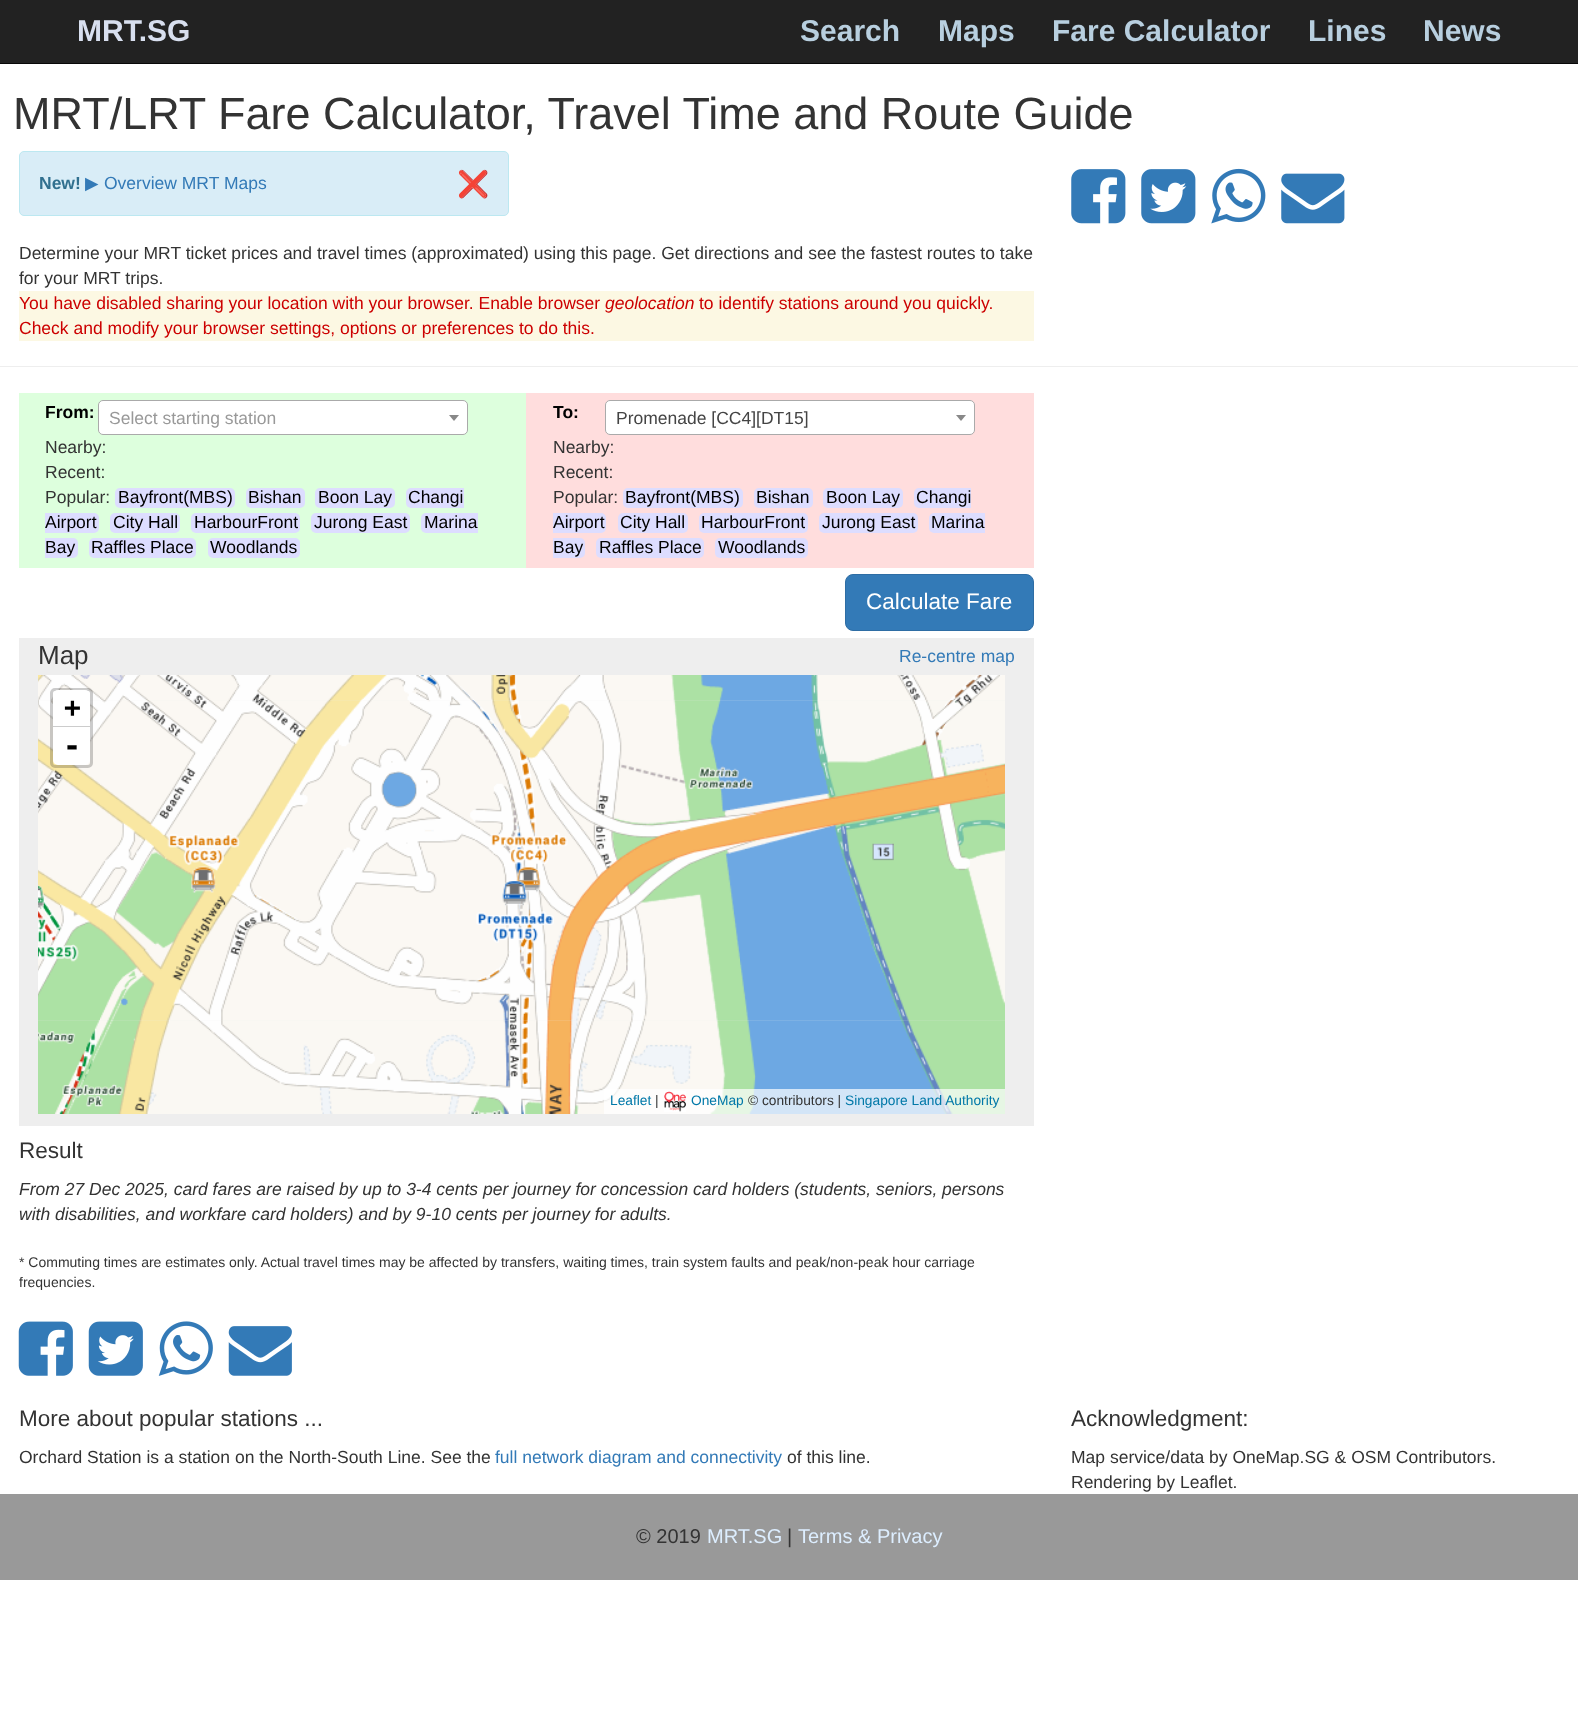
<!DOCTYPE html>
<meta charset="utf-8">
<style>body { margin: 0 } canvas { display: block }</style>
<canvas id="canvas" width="1578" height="1725"></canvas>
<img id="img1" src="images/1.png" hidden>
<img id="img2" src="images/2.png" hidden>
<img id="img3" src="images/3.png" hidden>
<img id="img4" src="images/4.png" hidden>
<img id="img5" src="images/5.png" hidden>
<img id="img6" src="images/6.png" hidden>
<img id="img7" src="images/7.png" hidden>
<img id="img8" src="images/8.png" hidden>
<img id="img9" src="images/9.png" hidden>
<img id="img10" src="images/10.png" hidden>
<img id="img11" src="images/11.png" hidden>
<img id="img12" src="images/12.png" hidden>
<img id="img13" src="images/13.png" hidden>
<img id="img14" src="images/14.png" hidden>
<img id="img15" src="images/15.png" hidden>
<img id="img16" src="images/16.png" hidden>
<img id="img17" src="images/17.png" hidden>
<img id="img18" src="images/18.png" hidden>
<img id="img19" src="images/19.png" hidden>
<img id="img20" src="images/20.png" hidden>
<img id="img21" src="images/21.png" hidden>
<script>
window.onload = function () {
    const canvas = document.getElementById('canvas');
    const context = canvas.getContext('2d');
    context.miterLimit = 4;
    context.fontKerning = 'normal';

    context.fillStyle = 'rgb(255, 255, 255)';
    context.fillRect(0, 0, 1578, 1725);
    context.fillStyle = 'rgb(34, 34, 34)';
    context.fillRect(0, 0, 1578, 63);
    context.fillStyle = 'rgb(8, 8, 8)';
    context.fillRect(0, 63, 1578, 1);
    context.fillStyle = 'rgb(217, 237, 247)';
    context.beginPath();
    context.roundRect(19.5, 151.5, 489, 64, 4.5);
    context.fill();
    context.strokeStyle = 'rgb(188, 232, 241)';
    context.stroke();
    context.fillStyle = 'rgb(252, 248, 227)';
    context.fillRect(19, 291, 1015, 50);
    context.drawImage(document.getElementById('img1'), 1071, 169, 55, 55);
    context.drawImage(document.getElementById('img2'), 1141, 169, 55, 55);
    context.drawImage(document.getElementById('img3'), 1211, 168, 55, 56);
    context.drawImage(document.getElementById('img4'), 1281, 173, 64, 51);
    context.fillStyle = 'rgb(238, 238, 238)';
    context.fillRect(0, 366, 1578, 1);
    context.fillStyle = 'rgb(221, 255, 221)';
    context.fillRect(19, 393, 507, 175);
    context.fillStyle = 'rgb(255, 255, 255)';
    context.beginPath();
    context.roundRect(98.5, 400.5, 369, 34, 4.5);
    context.fill();
    context.strokeStyle = 'rgb(170, 170, 170)';
    context.stroke();
    context.fillStyle = 'rgb(136, 136, 136)';
    context.beginPath();
    context.moveTo(449, 415);
    context.lineTo(459, 415);
    context.lineTo(454, 421);
    context.closePath();
    context.fill();
    context.fillStyle = 'rgb(221, 221, 255)';
    context.beginPath();
    context.roundRect(115, 488, 120, 20, 5);
    context.fill();
    context.beginPath();
    context.roundRect(246, 488, 59, 20, 5);
    context.fill();
    context.beginPath();
    context.roundRect(315, 488, 80, 20, 5);
    context.fill();
    context.beginPath();
    context.roundRect(406, 488, 58, 20, [5, 0, 0, 5]);
    context.fill();
    context.beginPath();
    context.roundRect(45, 513, 54, 20, [0, 5, 5, 0]);
    context.fill();
    context.beginPath();
    context.roundRect(110, 513, 70, 20, 5);
    context.fill();
    context.beginPath();
    context.roundRect(191, 513, 109, 20, 5);
    context.fill();
    context.beginPath();
    context.roundRect(311, 513, 99, 20, 5);
    context.fill();
    context.beginPath();
    context.roundRect(421, 513, 57, 20, [5, 0, 0, 5]);
    context.fill();
    context.beginPath();
    context.roundRect(45, 538, 33, 20, [0, 5, 5, 0]);
    context.fill();
    context.beginPath();
    context.roundRect(89, 538, 107, 20, 5);
    context.fill();
    context.beginPath();
    context.roundRect(208, 538, 92, 20, 5);
    context.fill();
    context.fillStyle = 'rgb(255, 221, 221)';
    context.fillRect(526, 393, 508, 175);
    context.fillStyle = 'rgb(255, 255, 255)';
    context.beginPath();
    context.roundRect(605.5, 400.5, 369, 34, 4.5);
    context.fill();
    context.stroke();
    context.fillStyle = 'rgb(136, 136, 136)';
    context.beginPath();
    context.moveTo(956, 415);
    context.lineTo(966, 415);
    context.lineTo(961, 421);
    context.closePath();
    context.fill();
    context.fillStyle = 'rgb(221, 221, 255)';
    context.beginPath();
    context.roundRect(623, 488, 120, 20, 5);
    context.fill();
    context.beginPath();
    context.roundRect(754, 488, 59, 20, 5);
    context.fill();
    context.beginPath();
    context.roundRect(823, 488, 80, 20, 5);
    context.fill();
    context.beginPath();
    context.roundRect(914, 488, 57, 20, [5, 0, 0, 5]);
    context.fill();
    context.beginPath();
    context.roundRect(553, 513, 53, 20, [0, 5, 5, 0]);
    context.fill();
    context.beginPath();
    context.roundRect(618, 513, 70, 20, 5);
    context.fill();
    context.beginPath();
    context.roundRect(699, 513, 109, 20, 5);
    context.fill();
    context.beginPath();
    context.roundRect(819, 513, 99, 20, 5);
    context.fill();
    context.beginPath();
    context.roundRect(929, 513, 56, 20, [5, 0, 0, 5]);
    context.fill();
    context.beginPath();
    context.roundRect(553, 538, 32, 20, [0, 5, 5, 0]);
    context.fill();
    context.beginPath();
    context.roundRect(596, 538, 108, 20, 5);
    context.fill();
    context.beginPath();
    context.roundRect(715, 538, 93, 20, 5);
    context.fill();
    context.fillStyle = 'rgb(51, 122, 183)';
    context.beginPath();
    context.roundRect(845.5, 574.5, 188, 56, 7.5);
    context.fill();
    context.strokeStyle = 'rgb(46, 109, 164)';
    context.stroke();
    context.fillStyle = 'rgb(238, 238, 238)';
    context.fillRect(19, 638, 1015, 488);
    context.drawImage(document.getElementById('img5'), 38, 675, 62, 25);
    context.drawImage(document.getElementById('img6'), 100, 675, 320, 25);
    context.drawImage(document.getElementById('img7'), 420, 675, 320, 25);
    context.drawImage(document.getElementById('img8'), 740, 675, 265, 25);
    context.drawImage(document.getElementById('img9'), 38, 700, 62, 320);
    context.drawImage(document.getElementById('img10'), 100, 700, 320, 320);
    context.drawImage(document.getElementById('img11'), 420, 700, 320, 320);
    context.drawImage(document.getElementById('img12'), 740, 700, 265, 320);
    context.drawImage(document.getElementById('img13'), 38, 1020, 62, 94);
    context.drawImage(document.getElementById('img14'), 100, 1020, 320, 94);
    context.drawImage(document.getElementById('img15'), 420, 1019, 320, 95);
    context.drawImage(document.getElementById('img16'), 740, 1020, 265, 94);
    context.beginPath();
    context.roundRect(51.5, 689.5, 40, 77, 3.5);
    context.strokeStyle = 'rgba(0, 0, 0, 0.2)';
    context.lineWidth = 3;
    context.stroke();
    context.fillStyle = 'rgb(255, 255, 255)';
    context.beginPath();
    context.roundRect(53, 690, 37, 38, [5, 5, 0, 0]);
    context.fill();
    context.fillStyle = 'rgb(204, 204, 204)';
    context.fillRect(53, 726, 37, 1);
    context.fillStyle = 'rgb(255, 255, 255)';
    context.beginPath();
    context.roundRect(53, 728, 37, 37, [0, 0, 5, 5]);
    context.fill();
    context.fillStyle = 'rgba(255, 255, 255, 0.7)';
    context.fillRect(604, 1089, 401, 25);
    context.drawImage(document.getElementById('img17'), 664, 1091, 22, 21);
    context.drawImage(document.getElementById('img18'), 18, 1321, 55, 55);
    context.drawImage(document.getElementById('img19'), 88, 1321, 55, 55);
    context.drawImage(document.getElementById('img20'), 158, 1321, 55, 55);
    context.drawImage(document.getElementById('img21'), 228, 1326, 64, 50);
    context.fillStyle = 'rgb(153, 153, 153)';
    context.fillRect(0, 1494, 1578, 86);
    context.font = 'bold 30px Liberation Sans';
    context.fillStyle = 'rgb(216, 223, 239)';
    context.fillText('MRT.SG', 77, 41);
    context.fillStyle = 'rgb(184, 207, 223)';
    context.fillText('Search', 800, 41);
    context.fillText('Maps', 938, 41);
    context.fillText('Fare Calculator', 1052, 41);
    context.fillText('Lines', 1308, 41);
    context.fillText('News', 1423, 41);
    context.font = '45px Liberation Sans';
    context.fillStyle = 'rgb(51, 51, 51)';
    context.fillText('MRT/LRT Fare Calculator, Travel Time and Route Guide', 13, 129);
    context.font = 'bold 17.5px Liberation Sans';
    context.fillStyle = 'rgb(49, 112, 143)';
    context.fillText('New!', 39, 189);
    context.font = '17.5px DejaVu Sans';
    context.fillStyle = 'rgb(51, 122, 183)';
    context.fillText('▶', 85, 189);
    context.font = '17.5px Liberation Sans';
    context.fillText('Overview MRT Maps', 104, 189);
    context.font = 'bold 26px Noto Color Emoji';
    context.fillStyle = 'rgb(49, 112, 143)';
    context.fillText('❌', 457, 193);
    context.font = '17.5px Liberation Sans';
    context.fillStyle = 'rgb(51, 51, 51)';
    context.fillText('Determine your MRT ticket prices and travel times (approximated) using this page. Get directions and see the fastest routes to take', 19, 259);
    context.fillText('for your MRT trips.', 19, 284);
    context.fillStyle = 'rgb(204, 0, 0)';
    context.fillText('You have disabled sharing your location with your browser. Enable browser', 19, 309);
    context.font = 'italic 17.5px Liberation Sans';
    context.fillText('geolocation', 605, 309);
    context.font = '17.5px Liberation Sans';
    context.fillText('to identify stations around you quickly.', 699, 309);
    context.fillText('Check and modify your browser settings, options or preferences to do this.', 19, 334);
    context.font = 'bold 17.5px Liberation Sans';
    context.fillStyle = 'rgb(0, 0, 0)';
    context.fillText('From:', 45, 418);
    context.font = '17.5px Liberation Sans';
    context.fillStyle = 'rgb(153, 153, 153)';
    context.fillText('Select starting station', 109, 424);
    context.fillStyle = 'rgb(51, 51, 51)';
    context.fillText('Nearby:', 45, 453);
    context.fillText('Recent:', 45, 478);
    context.fillText('Popular:', 45, 503);
    context.fillStyle = 'rgb(0, 0, 0)';
    context.fillText('Bayfront(MBS)', 118, 503);
    context.fillText('Bishan', 248, 503);
    context.fillText('Boon Lay', 318, 503);
    context.fillText('Changi', 408, 503);
    context.fillText('Airport', 45, 528);
    context.fillText('City Hall', 113, 528);
    context.fillText('HarbourFront', 194, 528);
    context.fillText('Jurong East', 314, 528);
    context.fillText('Marina', 424, 528);
    context.fillText('Bay', 45, 553);
    context.fillText('Raffles Place', 91, 553);
    context.fillText('Woodlands', 210, 553);
    context.font = 'bold 17.5px Liberation Sans';
    context.fillText('To:', 553, 418);
    context.font = '17.5px Liberation Sans';
    context.fillStyle = 'rgb(68, 68, 68)';
    context.fillText('Promenade [CC4][DT15]', 616, 424);
    context.fillStyle = 'rgb(51, 51, 51)';
    context.fillText('Nearby:', 553, 453);
    context.fillText('Recent:', 553, 478);
    context.fillText('Popular:', 553, 503);
    context.fillStyle = 'rgb(0, 0, 0)';
    context.fillText('Bayfront(MBS)', 625, 503);
    context.fillText('Bishan', 756, 503);
    context.fillText('Boon Lay', 826, 503);
    context.fillText('Changi', 916, 503);
    context.fillText('Airport', 553, 528);
    context.fillText('City Hall', 620, 528);
    context.fillText('HarbourFront', 701, 528);
    context.fillText('Jurong East', 822, 528);
    context.fillText('Marina', 931, 528);
    context.fillText('Bay', 553, 553);
    context.fillText('Raffles Place', 599, 553);
    context.fillText('Woodlands', 718, 553);
    context.font = '22.5px Liberation Sans';
    context.fillStyle = 'rgb(255, 255, 255)';
    context.fillText('Calculate Fare', 866, 609);
    context.font = '26px Liberation Sans';
    context.fillStyle = 'rgb(51, 51, 51)';
    context.fillText('Map', 38, 664);
    context.font = '17.5px Liberation Sans';
    context.fillStyle = 'rgb(51, 122, 183)';
    context.fillText('Re-centre map', 899, 662);
    context.font = 'bold 28px DejaVu Sans Mono';
    context.fillStyle = 'rgb(0, 0, 0)';
    context.fillText('+', 64, 717);
    context.font = 'bold 30px DejaVu Sans Mono';
    context.fillText('-', 63, 756);
    context.font = '13.75px Liberation Sans';
    context.fillStyle = 'rgb(0, 120, 168)';
    context.fillText('Leaflet', 610, 1105);
    context.fillStyle = 'rgb(51, 51, 51)';
    context.fillText('|', 655, 1105);
    context.fillStyle = 'rgb(0, 120, 168)';
    context.fillText('OneMap', 691, 1105);
    context.fillStyle = 'rgb(51, 51, 51)';
    context.fillText('© contributors |', 748, 1105);
    context.fillStyle = 'rgb(0, 120, 168)';
    context.fillText('Singapore Land Authority', 845, 1105);
    context.font = '22.5px Liberation Sans';
    context.fillStyle = 'rgb(51, 51, 51)';
    context.fillText('Result', 19, 1158);
    context.font = 'italic 17.5px Liberation Sans';
    context.fillText('From 27 Dec 2025, card fares are raised by up to 3-4 cents per journey for concession card holders (students, seniors, persons', 19, 1195);
    context.fillText('with disabilities, and workfare card holders) and by 9-10 cents per journey for adults.', 19, 1220);
    context.font = '14px Liberation Sans';
    context.fillText('* Commuting times are estimates only. Actual travel times may be affected by transfers, waiting times, train system faults and peak/non-peak hour carriage', 19, 1267);
    context.fillText('frequencies.', 19, 1287);
    context.font = '22.5px Liberation Sans';
    context.fillText('More about popular stations ...', 19, 1426);
    context.font = '17.5px Liberation Sans';
    context.fillText('Orchard Station is a station on the North-South Line. See the', 19, 1463);
    context.fillStyle = 'rgb(51, 122, 183)';
    context.fillText('full network diagram and connectivity', 495, 1463);
    context.fillStyle = 'rgb(51, 51, 51)';
    context.fillText('of this line.', 787, 1463);
    context.font = '22.5px Liberation Sans';
    context.fillText('Acknowledgment:', 1071, 1426);
    context.font = '17.5px Liberation Sans';
    context.fillText('Map service/data by OneMap.SG & OSM Contributors.', 1071, 1463);
    context.fillText('Rendering by Leaflet.', 1071, 1488);
    context.font = '20px Liberation Sans';
    context.fillText('© 2019', 636, 1543);
    context.fillStyle = 'rgb(221, 238, 255)';
    context.fillText('MRT.SG', 707, 1543);
    context.fillStyle = 'rgb(51, 51, 51)';
    context.fillText('|', 787, 1543);
    context.fillStyle = 'rgb(221, 238, 255)';
    context.fillText('Terms & Privacy', 798, 1543);
};
</script>
